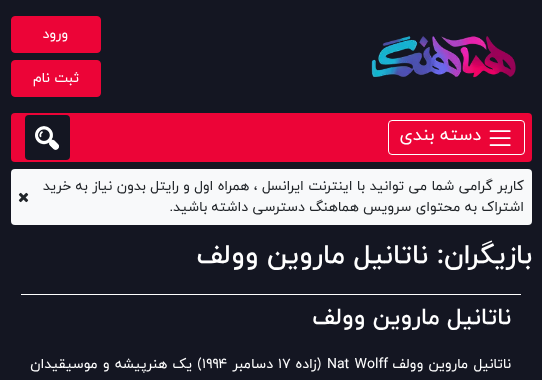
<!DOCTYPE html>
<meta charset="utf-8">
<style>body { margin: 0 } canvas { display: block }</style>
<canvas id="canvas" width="542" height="380"></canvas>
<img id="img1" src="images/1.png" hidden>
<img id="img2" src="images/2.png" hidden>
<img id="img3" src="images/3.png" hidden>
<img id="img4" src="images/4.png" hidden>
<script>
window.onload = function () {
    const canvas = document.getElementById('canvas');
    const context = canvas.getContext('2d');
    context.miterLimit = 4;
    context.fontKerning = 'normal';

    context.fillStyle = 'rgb(20, 22, 34)';
    context.fillRect(0, 0, 542, 380);
    context.drawImage(document.getElementById('img1'), 371, 36, 145, 42);
    context.fillStyle = 'rgb(236, 4, 55)';
    context.beginPath();
    context.roundRect(11.5, 16.5, 89, 36, 3.5);
    context.fill();
    context.strokeStyle = 'rgb(236, 4, 55)';
    context.stroke();
    context.beginPath();
    context.roundRect(11.5, 60.5, 89, 36, 3.5);
    context.fill();
    context.stroke();
    context.beginPath();
    context.roundRect(11, 113, 521, 49, 4);
    context.fill();
    context.beginPath();
    context.roundRect(388.5, 120.5, 136, 34, 3.5);
    context.strokeStyle = 'rgb(255, 255, 255)';
    context.stroke();
    context.drawImage(document.getElementById('img2'), 489, 130, 22, 16);
    context.fillStyle = 'rgb(20, 22, 34)';
    context.beginPath();
    context.roundRect(25, 115, 45, 45, 4);
    context.fill();
    context.drawImage(document.getElementById('img3'), 35, 126, 24, 24);
    context.fillStyle = 'rgb(248, 249, 250)';
    context.beginPath();
    context.roundRect(11, 169, 521, 56, 4);
    context.fill();
    context.drawImage(document.getElementById('img4'), 18, 192, 11, 11);
    context.fillStyle = 'rgb(255, 255, 255)';
    context.fillRect(21, 294, 500, 1);
    context.direction = 'rtl';
    context.font = '14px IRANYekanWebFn';
    context.fillText('ورود', 68, 38);
    context.fillText('ثبت نام', 79, 82);
    context.font = '17.5px IRANYekanWebFn';
    context.fillText('دسته بندی', 481, 140);
    context.font = '14px IRANYekanWebFn';
    context.fillStyle = 'rgb(33, 37, 41)';
    context.fillText('کاربر گرامی شما می توانید با اینترنت ایرانسل ، همراه اول و رایتل بدون نیاز به خرید', 524, 190);
    context.fillText('اشتراک به محتوای سرویس هماهنگ دسترسی داشته باشید.', 524, 211);
    context.font = '500 27.4px IRANYekanWebFn';
    context.fillStyle = 'rgb(255, 255, 255)';
    context.fillText('بازیگران:', 532, 263);
    context.fillText('ناتانیل ماروین وولف', 428, 263);
    context.font = '500 23.5px IRANYekanWebFn';
    context.fillText('ناتانیل ماروین وولف', 511, 324);
    context.wordSpacing = '1px';
    context.font = '14px IRANYekanWebFn';
    context.fillText('ناتانیل ماروین وولف', 511, 368);
    context.direction = 'ltr';
    context.fillText('Nat Wolff', 327, 368);
    context.wordSpacing = '0px';
    context.direction = 'rtl';
    context.fillText('(زاده', 321, 368);
    context.direction = 'ltr';
    context.fillText('۱۷', 278, 368);
    context.direction = 'rtl';
    context.fillText('دسامبر', 273, 368);
    context.direction = 'ltr';
    context.fillText('۱۹۹۴', 202, 368);
    context.wordSpacing = '1px';
    context.direction = 'rtl';
    context.fillText(') یک هنرپیشه و موسیقیدان', 202, 368);
};
</script>
